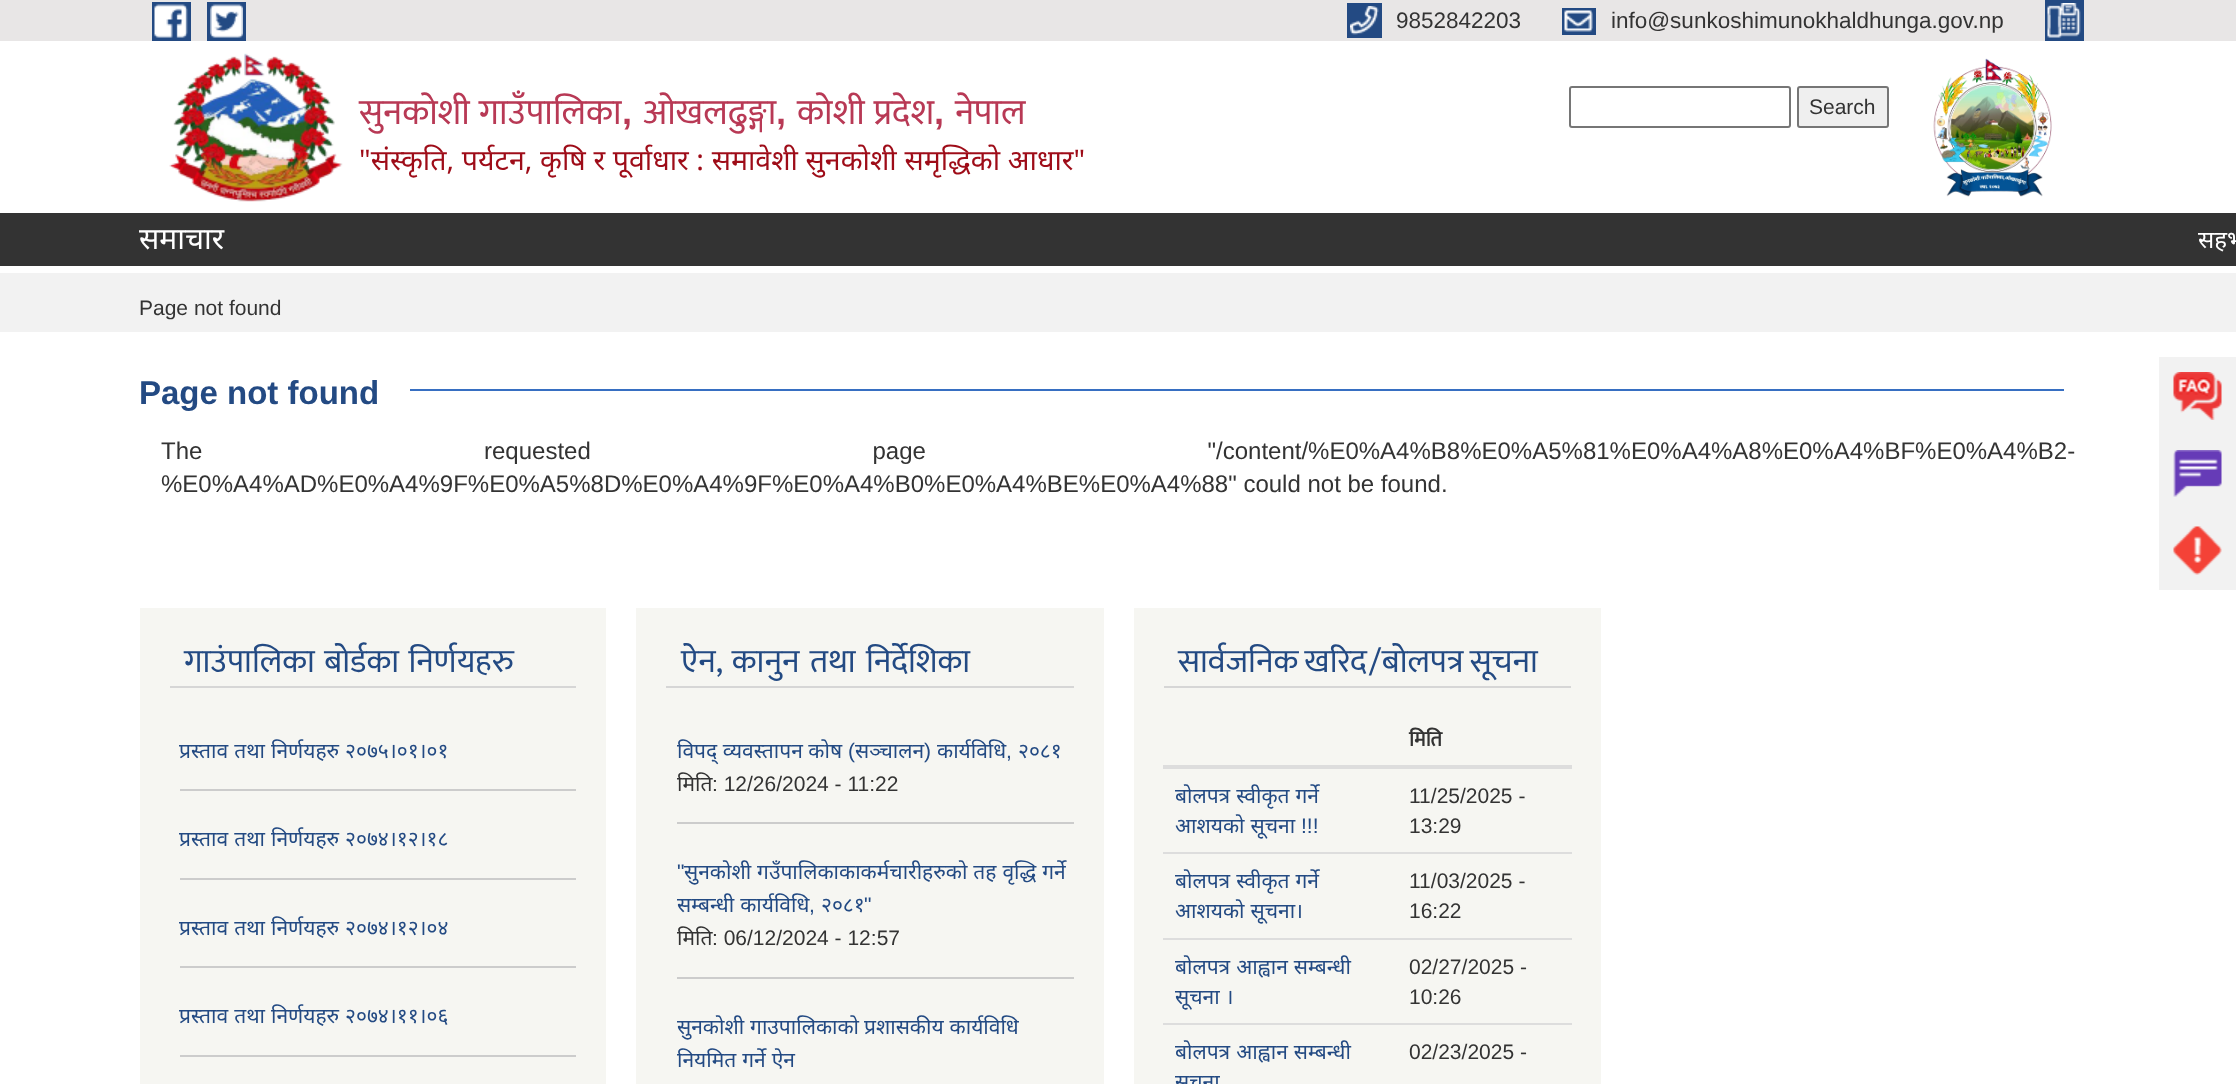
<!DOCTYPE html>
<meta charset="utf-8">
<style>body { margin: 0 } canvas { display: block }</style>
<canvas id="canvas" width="2236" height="1084"></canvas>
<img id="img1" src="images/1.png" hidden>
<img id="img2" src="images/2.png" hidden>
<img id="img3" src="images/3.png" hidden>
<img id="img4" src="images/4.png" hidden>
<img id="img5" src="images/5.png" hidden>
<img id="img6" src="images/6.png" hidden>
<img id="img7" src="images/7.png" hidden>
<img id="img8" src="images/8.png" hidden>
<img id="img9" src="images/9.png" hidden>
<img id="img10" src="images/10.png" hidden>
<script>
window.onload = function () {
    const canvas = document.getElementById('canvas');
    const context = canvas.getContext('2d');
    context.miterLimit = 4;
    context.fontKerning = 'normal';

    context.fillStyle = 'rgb(255, 255, 255)';
    context.fillRect(0, 0, 2236, 1084);
    context.fillStyle = 'rgb(232, 230, 230)';
    context.fillRect(0, 0, 2236, 41);
    context.fillStyle = 'rgb(35, 74, 131)';
    context.fillRect(152, 2, 39, 39);
    context.fillRect(207, 2, 39, 39);
    context.drawImage(document.getElementById('img1'), 154, 4, 34, 34);
    context.drawImage(document.getElementById('img2'), 210, 4, 33, 34);
    context.fillRect(2045, 0, 39, 41);
    context.fillRect(1347, 3, 35, 35);
    context.drawImage(document.getElementById('img3'), 1350, 6, 29, 29);
    context.fillRect(1562, 8, 34, 27);
    context.drawImage(document.getElementById('img4'), 1564, 10, 29, 22);
    context.drawImage(document.getElementById('img5'), 2047, 3, 34, 35);
    context.drawImage(document.getElementById('img6'), 169, 53, 174, 149);
    context.beginPath();
    context.roundRect(1570, 87, 220, 40, 2);
    context.strokeStyle = 'rgb(118, 118, 118)';
    context.lineWidth = 2;
    context.stroke();
    context.fillStyle = 'rgb(239, 239, 239)';
    context.beginPath();
    context.roundRect(1798, 87, 90, 40, 2);
    context.fill();
    context.stroke();
    context.drawImage(document.getElementById('img7'), 1933, 58, 119, 139);
    context.fillStyle = 'rgb(51, 51, 51)';
    context.fillRect(0, 213, 2236, 53);
    context.fillStyle = 'rgb(242, 242, 242)';
    context.fillRect(0, 273, 2236, 59);
    context.fillStyle = 'rgb(55, 111, 194)';
    context.fillRect(410, 389, 1654, 2);
    context.fillStyle = 'rgb(246, 246, 242)';
    context.fillRect(140, 608, 466, 476);
    context.fillStyle = 'rgb(214, 214, 214)';
    context.fillRect(170, 686, 406, 2);
    context.fillStyle = 'rgb(204, 204, 204)';
    context.fillRect(180, 789, 396, 2);
    context.fillRect(180, 878, 396, 2);
    context.fillRect(180, 966, 396, 2);
    context.fillRect(180, 1055, 396, 2);
    context.fillStyle = 'rgb(246, 246, 242)';
    context.fillRect(636, 608, 468, 476);
    context.fillStyle = 'rgb(214, 214, 214)';
    context.fillRect(666, 686, 408, 2);
    context.fillStyle = 'rgb(204, 204, 204)';
    context.fillRect(677, 822, 397, 2);
    context.fillRect(677, 977, 397, 2);
    context.fillStyle = 'rgb(246, 246, 242)';
    context.fillRect(1134, 608, 467, 476);
    context.fillStyle = 'rgb(214, 214, 214)';
    context.fillRect(1164, 686, 407, 2);
    context.fillStyle = 'rgb(221, 221, 221)';
    context.fillRect(1163, 765, 409, 3);
    context.fillRect(1163, 768, 409, 1);
    context.fillRect(1163, 852, 409, 2);
    context.fillRect(1163, 938, 409, 2);
    context.fillRect(1163, 1023, 409, 2);
    context.fillStyle = 'rgb(242, 242, 242)';
    context.fillRect(2159, 357, 77, 233);
    context.drawImage(document.getElementById('img8'), 2173, 372, 49, 48);
    context.drawImage(document.getElementById('img9'), 2173, 450, 49, 47);
    context.drawImage(document.getElementById('img10'), 2173, 526, 49, 49);
    context.font = '22.5px Liberation Sans';
    context.fillStyle = 'rgb(51, 51, 51)';
    context.fillText('9852842203', 1396, 28);
    context.fillText('info@sunkoshimunokhaldhunga.gov.np', 1611, 28);
    context.wordSpacing = '1px';
    context.font = '36px Mukta';
    context.fillStyle = 'rgb(184, 57, 85)';
    context.fillText('सुनकोशी गाउँपालिका', 359, 124);
    context.wordSpacing = '0px';
    context.font = 'bold 36px Liberation Sans';
    context.fillText(',', 622, 124);
    context.font = '36px Mukta';
    context.fillText('ओखलढुङ्गा', 643, 124);
    context.font = 'bold 36px Liberation Sans';
    context.fillText(',', 776, 124);
    context.wordSpacing = '1px';
    context.font = '36px Mukta';
    context.fillText('कोशी प्रदेश', 797, 124);
    context.wordSpacing = '0px';
    context.font = 'bold 36px Liberation Sans';
    context.fillText(',', 934, 124);
    context.font = '36px Mukta';
    context.fillText('नेपाल', 955, 124);
    context.wordSpacing = '0.25px';
    context.font = '28.5px Noto Sans';
    context.fillStyle = 'rgb(158, 12, 24)';
    context.fillText('"संस्कृति, पर्यटन, कृषि र पूर्वाधार : समावेशी सुनकोशी समृद्धिको आधार"', 359, 170);
    context.wordSpacing = '0px';
    context.font = '21px Liberation Sans';
    context.fillStyle = 'rgb(51, 51, 51)';
    context.fillText('Search', 1809, 114);
    context.font = '30px Noto Sans';
    context.fillStyle = 'rgb(255, 255, 255)';
    context.fillText('समाचार', 139, 249);
    context.font = '24px Noto Sans';
    context.fillText('सहभ', 2198, 248);
    context.font = '21px Liberation Sans';
    context.fillStyle = 'rgb(51, 51, 51)';
    context.fillText('Page not found', 139, 315);
    context.font = 'bold 33px Liberation Sans';
    context.fillStyle = 'rgb(35, 74, 131)';
    context.fillText('Page not found', 139, 404);
    context.wordSpacing = '275px';
    context.font = '24px Liberation Sans';
    context.fillStyle = 'rgb(51, 51, 51)';
    context.fillText('The requested page "/content/%E0%A4%B8%E0%A5%81%E0%A4%A8%E0%A4%BF%E0%A4%B2-', 161, 459);
    context.wordSpacing = '0px';
    context.fillText('%E0%A4%AD%E0%A4%9F%E0%A5%8D%E0%A4%9F%E0%A4%B0%E0%A4%BE%E0%A4%88" could not be found.', 161, 492);
    context.wordSpacing = '2px';
    context.font = '33px Mukta';
    context.fillStyle = 'rgb(35, 74, 131)';
    context.fillText('गाउ‌ंपालिका बोर्डका निर्णयहरु', 184, 672);
    context.wordSpacing = '0.5px';
    context.font = '21px Noto Sans';
    context.fillText('प्रस्ताव तथा निर्णयहरु २०७५।०१।०१', 179, 758);
    context.fillText('प्रस्ताव तथा निर्णयहरु २०७४।१२।१८', 179, 846);
    context.fillText('प्रस्ताव तथा निर्णयहरु २०७४।१२।०४', 179, 935);
    context.fillText('प्रस्ताव तथा निर्णयहरु २०७४।११।०६', 179, 1023);
    context.wordSpacing = '3px';
    context.font = '33px Mukta';
    context.fillText('ऐन, कानुन तथा निर्देशिका', 681, 672);
    context.wordSpacing = '0px';
    context.font = '21px Noto Sans';
    context.fillText('विपद् व्यवस्तापन कोष', 677, 758);
    context.font = '21px Liberation Sans';
    context.fillText('(', 848, 758);
    context.font = '21px Noto Sans';
    context.fillText('सञ्चालन', 855, 758);
    context.font = '21px Liberation Sans';
    context.fillText(')', 924, 758);
    context.font = '21px Noto Sans';
    context.fillText('कार्यविधि', 937, 758);
    context.font = '21px Liberation Sans';
    context.fillText(',', 1006, 758);
    context.font = '21px Noto Sans';
    context.fillText('२०८१', 1018, 758);
    context.fillStyle = 'rgb(51, 51, 51)';
    context.fillText('मिति', 677, 791);
    context.font = '21px Liberation Sans';
    context.fillText(': 12/26/2024 - 11:22', 712, 791);
    context.fillStyle = 'rgb(35, 74, 131)';
    context.fillText('"', 677, 879);
    context.wordSpacing = '0.5px';
    context.font = '21px Noto Sans';
    context.fillText('सुनकोशी गउँपालिकाकाकर्मचारीहरुको तह वृद्धि गर्ने', 684, 879);
    context.fillText('सम्बन्धी कार्यविधि', 677, 912);
    context.wordSpacing = '0px';
    context.font = '21px Liberation Sans';
    context.fillText(',', 809, 912);
    context.font = '21px Noto Sans';
    context.fillText('२०८१', 821, 912);
    context.font = '21px Liberation Sans';
    context.fillText('"', 864, 912);
    context.font = '21px Noto Sans';
    context.fillStyle = 'rgb(51, 51, 51)';
    context.fillText('मिति', 677, 945);
    context.font = '21px Liberation Sans';
    context.fillText(': 06/12/2024 - 12:57', 712, 945);
    context.wordSpacing = '0.5px';
    context.font = '21px Noto Sans';
    context.fillStyle = 'rgb(35, 74, 131)';
    context.fillText('सुनकोशी गाउपालिकाको', 677, 1034);
    context.fillText('प्रशासकीय कार्यविधि', 864, 1034);
    context.fillText('नियमित गर्ने ऐन', 677, 1067);
    context.wordSpacing = '-1px';
    context.font = '33px Mukta';
    context.fillText('सार्वजनिक खरिद/बोलपत्र सूचना', 1178, 672);
    context.wordSpacing = '0px';
    context.font = 'bold 21px Mukta';
    context.fillStyle = 'rgb(51, 51, 51)';
    context.fillText('मिति', 1409, 746);
    context.wordSpacing = '0.5px';
    context.font = '21px Noto Sans';
    context.fillStyle = 'rgb(35, 74, 131)';
    context.fillText('बोलपत्र स्वीकृत गर्ने', 1175, 803);
    context.fillText('आशयको सूचना', 1175, 833);
    context.wordSpacing = '0px';
    context.font = '21px Liberation Sans';
    context.fillText('!!!', 1301, 833);
    context.fillStyle = 'rgb(51, 51, 51)';
    context.fillText('11/25/2025 -', 1409, 803);
    context.fillText('13:29', 1409, 833);
    context.wordSpacing = '0.5px';
    context.font = '21px Noto Sans';
    context.fillStyle = 'rgb(35, 74, 131)';
    context.fillText('बोलपत्र स्वीकृत गर्ने', 1175, 888);
    context.fillText('आशयको सूचना।', 1175, 918);
    context.wordSpacing = '0px';
    context.font = '21px Liberation Sans';
    context.fillStyle = 'rgb(51, 51, 51)';
    context.fillText('11/03/2025 -', 1409, 888);
    context.fillText('16:22', 1409, 918);
    context.wordSpacing = '0.5px';
    context.font = '21px Noto Sans';
    context.fillStyle = 'rgb(35, 74, 131)';
    context.fillText('बोलपत्र आह्वान सम्बन्धी', 1175, 974);
    context.fillText('सूचना ।', 1175, 1004);
    context.wordSpacing = '0px';
    context.font = '21px Liberation Sans';
    context.fillStyle = 'rgb(51, 51, 51)';
    context.fillText('02/27/2025 -', 1409, 974);
    context.fillText('10:26', 1409, 1004);
    context.wordSpacing = '0.5px';
    context.font = '21px Noto Sans';
    context.fillStyle = 'rgb(35, 74, 131)';
    context.fillText('बोलपत्र आह्वान सम्बन्धी', 1175, 1059);
    context.wordSpacing = '0px';
    context.fillText('सूचना', 1175, 1089);
    context.font = '21px Liberation Sans';
    context.fillStyle = 'rgb(51, 51, 51)';
    context.fillText('02/23/2025 -', 1409, 1059);
};
</script>
